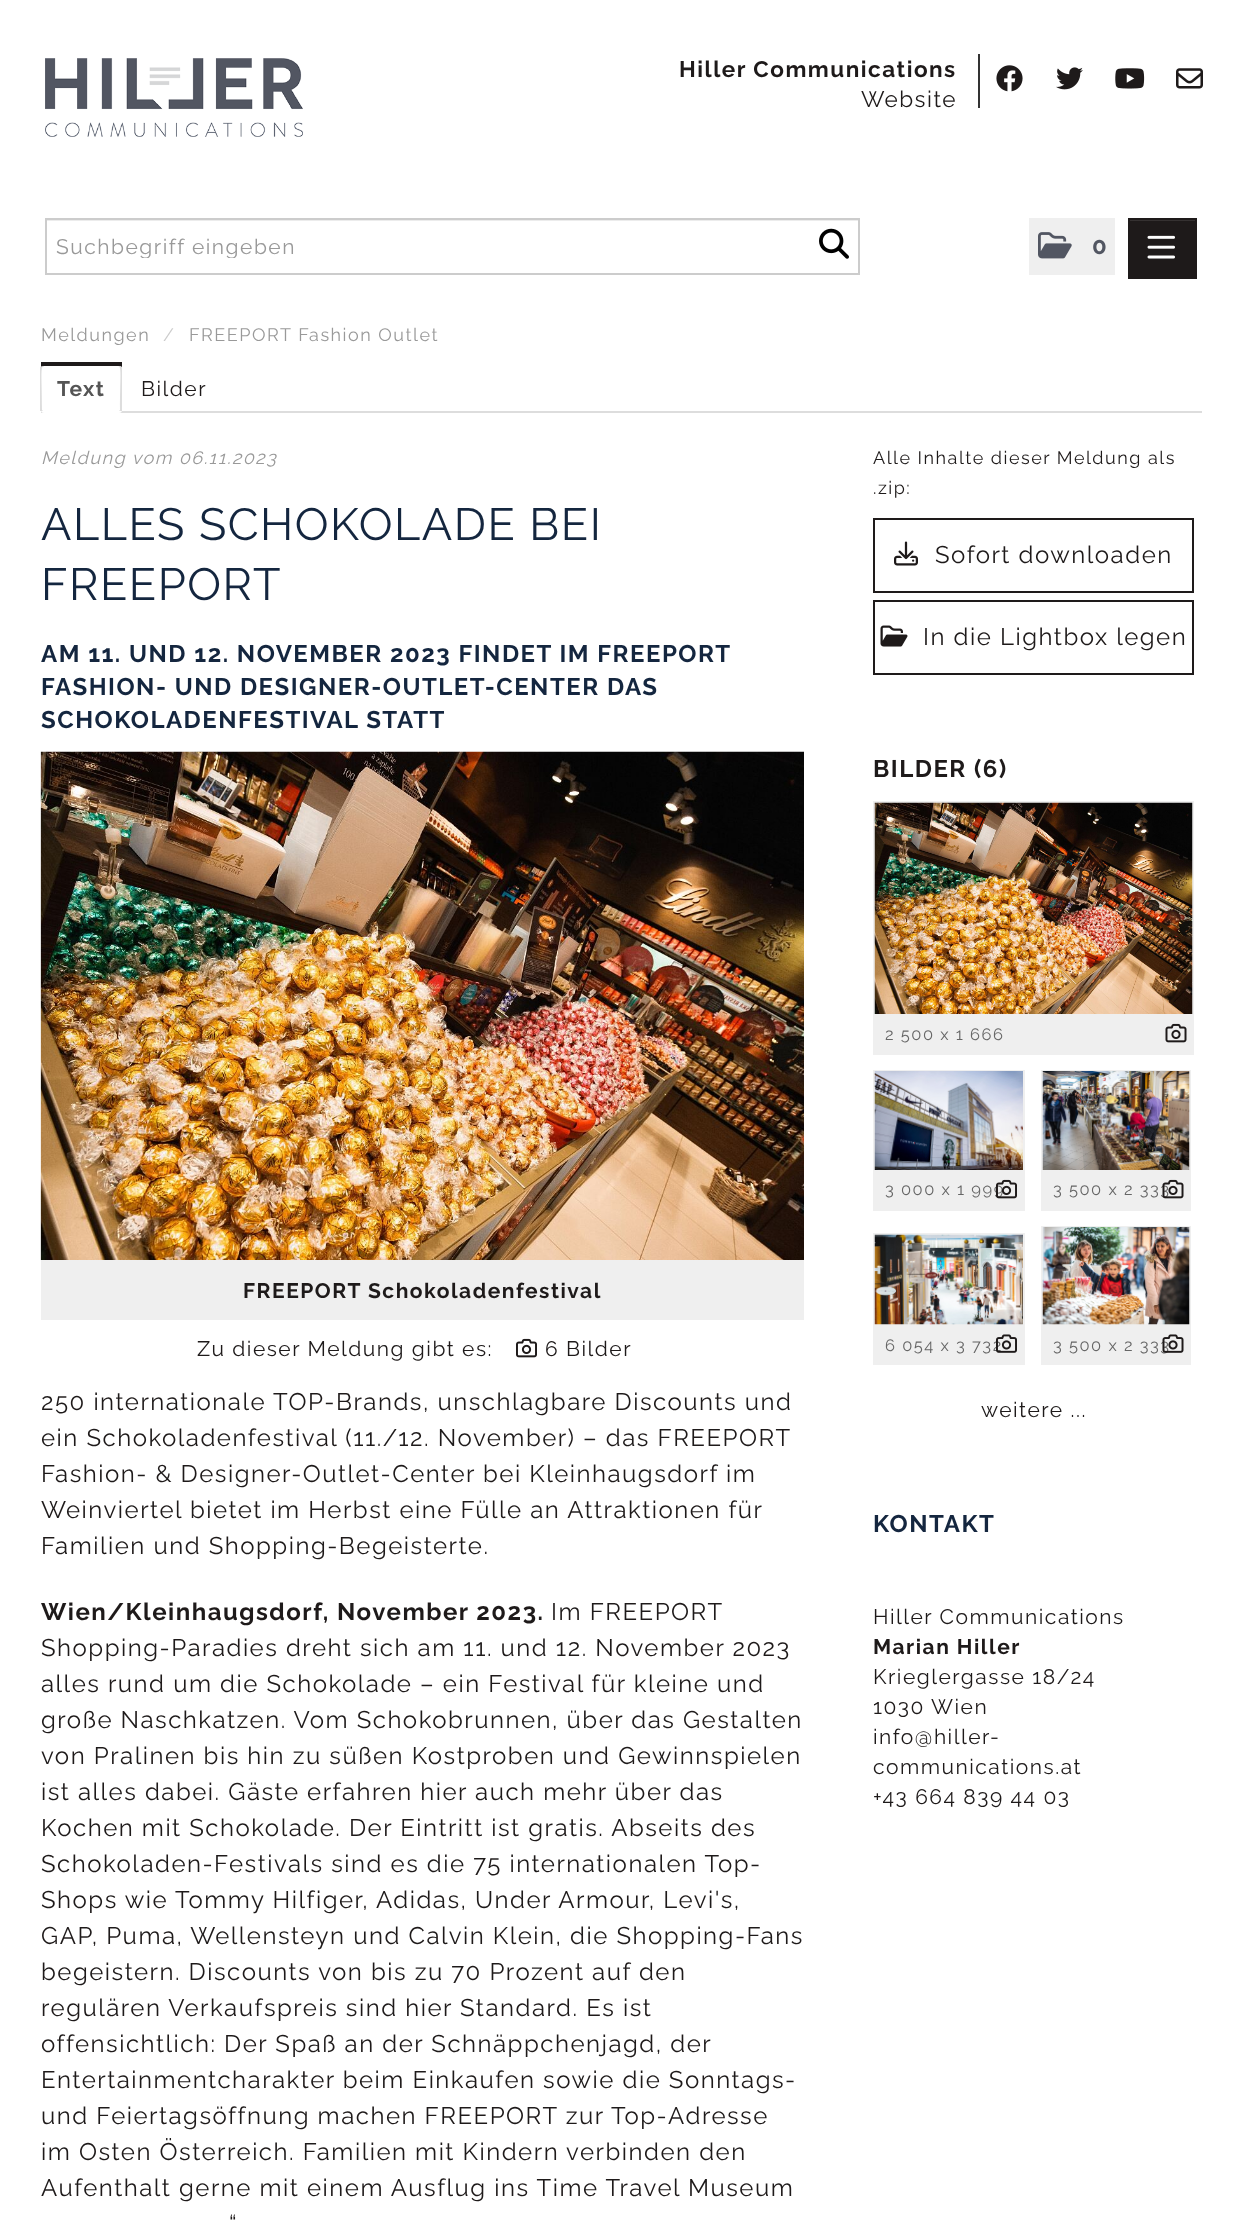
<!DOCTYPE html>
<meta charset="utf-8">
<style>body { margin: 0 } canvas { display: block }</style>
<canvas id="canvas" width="1242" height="2222"></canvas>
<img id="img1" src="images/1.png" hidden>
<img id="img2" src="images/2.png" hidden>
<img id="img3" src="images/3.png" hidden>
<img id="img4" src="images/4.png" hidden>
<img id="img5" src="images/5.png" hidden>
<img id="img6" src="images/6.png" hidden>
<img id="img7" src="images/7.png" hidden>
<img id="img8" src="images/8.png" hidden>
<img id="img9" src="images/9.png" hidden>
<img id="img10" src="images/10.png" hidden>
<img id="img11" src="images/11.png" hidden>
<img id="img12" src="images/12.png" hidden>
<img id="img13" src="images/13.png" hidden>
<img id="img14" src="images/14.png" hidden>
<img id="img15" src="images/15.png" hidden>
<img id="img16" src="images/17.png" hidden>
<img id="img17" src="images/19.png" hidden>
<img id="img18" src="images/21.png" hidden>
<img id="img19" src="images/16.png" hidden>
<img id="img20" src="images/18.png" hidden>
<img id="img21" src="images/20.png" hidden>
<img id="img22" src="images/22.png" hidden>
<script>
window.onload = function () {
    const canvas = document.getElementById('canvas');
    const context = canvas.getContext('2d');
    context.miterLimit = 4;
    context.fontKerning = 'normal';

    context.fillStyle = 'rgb(255, 255, 255)';
    context.fillRect(0, 0, 1242, 2222);
    context.drawImage(document.getElementById('img1'), 45, 58, 258, 79);
    context.fillStyle = 'rgb(51, 51, 51)';
    context.fillRect(978, 54, 2, 54);
    context.drawImage(document.getElementById('img2'), 996, 65, 27, 27);
    context.drawImage(document.getElementById('img3'), 1056, 67, 27, 23);
    context.drawImage(document.getElementById('img4'), 1115, 68, 30, 21);
    context.drawImage(document.getElementById('img5'), 1176, 68, 27, 21);
    context.fillStyle = 'rgb(236, 236, 236)';
    context.fillRect(47, 220, 811, 1);
    context.strokeStyle = 'rgb(204, 204, 204)';
    context.lineWidth = 2;
    context.strokeRect(46, 219, 813, 55);
    context.drawImage(document.getElementById('img6'), 819, 228, 30, 31);
    context.fillStyle = 'rgb(239, 239, 239)';
    context.fillRect(1029, 218, 86, 57);
    context.drawImage(document.getElementById('img7'), 1038, 232, 34, 27);
    context.fillStyle = 'rgb(30, 26, 26)';
    context.fillRect(1130, 221, 65, 56);
    context.fillStyle = 'rgb(53, 49, 49)';
    context.fillRect(1130, 220, 66, 1);
    context.strokeStyle = 'rgb(30, 26, 26)';
    context.strokeRect(1129, 219, 67, 59);
    context.drawImage(document.getElementById('img8'), 1147, 235, 28, 24);
    context.fillStyle = 'rgb(30, 26, 26)';
    context.fillRect(41, 362, 81, 5);
    context.fillStyle = 'rgb(221, 221, 221)';
    context.fillRect(41, 411, 1161, 2);
    context.fillStyle = 'rgb(255, 255, 255)';
    context.beginPath();
    context.roundRect(41, 366, 81, 47, 3);
    context.fill();
    context.fillStyle = 'rgb(221, 221, 221)';
    context.beginPath();
    context.moveTo(122, 367);
    context.bezierCurveTo(121, 366, 119, 366, 118, 366);
    context.bezierCurveTo(122, 366, 120, 378, 120, 410);
    context.lineTo(119, 410);
    context.lineTo(120, 411);
    context.lineTo(122, 411);
    context.closePath();
    context.fill();
    context.beginPath();
    context.moveTo(44, 366);
    context.bezierCurveTo(40, 366, 42, 378, 42, 410);
    context.lineTo(43, 410);
    context.lineTo(42, 411);
    context.lineTo(40, 411);
    context.lineTo(40, 367);
    context.bezierCurveTo(41, 366, 43, 366, 44, 366);
    context.closePath();
    context.fill();
    context.fillStyle = 'rgb(239, 239, 239)';
    context.fillRect(41, 1260, 763, 60);
    context.drawImage(document.getElementById('img9'), 40, 751, 764, 509);
    context.drawImage(document.getElementById('img10'), 516, 1338, 21, 20);
    context.strokeRect(874, 519, 319, 73);
    context.drawImage(document.getElementById('img11'), 894, 541, 24, 25);
    context.strokeRect(874, 601, 319, 73);
    context.drawImage(document.getElementById('img12'), 880, 625, 28, 22);
    context.fillRect(873, 801, 321, 254);
    context.drawImage(document.getElementById('img13'), 874, 802, 319, 212);
    context.drawImage(document.getElementById('img14'), 1165, 1023, 22, 20);
    context.fillRect(873, 1070, 152, 141);
    context.drawImage(document.getElementById('img15'), 874, 1071, 149, 99);
    context.fillRect(1041, 1070, 150, 141);
    context.drawImage(document.getElementById('img16'), 1042, 1071, 148, 99);
    context.fillRect(873, 1233, 152, 132);
    context.drawImage(document.getElementById('img17'), 874, 1234, 149, 91);
    context.fillRect(1041, 1226, 150, 139);
    context.drawImage(document.getElementById('img18'), 1042, 1227, 148, 98);
    context.letterSpacing = '1.5px';
    context.font = '100 22.5px "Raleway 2"';
    context.fillStyle = 'rgb(30, 26, 26)';
    context.fillText('Hiller Communications', 679, 77);
    context.font = '100 22.5px Raleway';
    context.fillText('Website', 861, 107);
    context.save();
    context.beginPath();
    context.rect(56, 234, 757, 24);
    context.clip();
    context.font = '100 21px Raleway';
    context.fillStyle = 'rgb(153, 153, 153)';
    context.fillText('Suchbegriff eingeben', 56, 254);
    context.restore();
    context.font = '100 24px "Raleway 2"';
    context.fillStyle = 'rgb(82, 86, 98)';
    context.fillText('0', 1092, 254);
    context.font = '100 18px Raleway';
    context.fillStyle = 'rgb(153, 153, 153)';
    context.fillText('Meldungen', 41, 341);
    context.fillStyle = 'rgb(204, 204, 204)';
    context.fillText('/', 163, 341);
    context.fillStyle = 'rgb(153, 153, 153)';
    context.fillText('FREEPORT Fashion Outlet', 189, 341);
    context.font = '100 21px "Raleway 2"';
    context.fillStyle = 'rgb(85, 85, 85)';
    context.fillText('Text', 57, 396);
    context.font = '100 21px Raleway';
    context.fillStyle = 'rgb(30, 26, 26)';
    context.fillText('Bilder', 141, 396);
    context.font = 'italic 100 18px Raleway';
    context.fillStyle = 'rgb(153, 153, 153)';
    context.fillText('Meldung vom 06.11.2023', 41, 464);
    context.font = '100 45px Raleway';
    context.fillStyle = 'rgb(20, 38, 63)';
    context.fillText('ALLES SCHOKOLADE BEI', 41, 540);
    context.fillText('FREEPORT', 41, 600);
    context.font = '100 24px "Raleway 2"';
    context.fillText('AM 11. UND 12. NOVEMBER 2023 FINDET IM FREEPORT', 41, 662);
    context.fillText('FASHION- UND DESIGNER-OUTLET-CENTER DAS', 41, 695);
    context.fillText('SCHOKOLADENFESTIVAL STATT', 41, 728);
    context.font = '100 21px "Raleway 2"';
    context.fillStyle = 'rgb(30, 26, 26)';
    context.fillText('FREEPORT Schokoladenfestival', 243, 1298);
    context.font = '100 21px Raleway';
    context.fillText('Zu dieser Meldung gibt es:', 197, 1356);
    context.fillText('6 Bilder', 545, 1356);
    context.font = '100 24px Raleway';
    context.fillText('250 internationale TOP-Brands, unschlagbare Discounts und', 41, 1410);
    context.fillText('ein Schokoladenfestival (11./12. November) – das FREEPORT', 41, 1446);
    context.fillText('Fashion- & Designer-Outlet-Center bei Kleinhaugsdorf im', 41, 1482);
    context.fillText('Weinviertel bietet im Herbst eine Fülle an Attraktionen für', 41, 1518);
    context.fillText('Familien und Shopping-Begeisterte.', 41, 1554);
    context.font = '100 24px "Raleway 2"';
    context.fillText('Wien/Kleinhaugsdorf, November 2023.', 41, 1620);
    context.font = '100 24px Raleway';
    context.fillText('Im FREEPORT', 551, 1620);
    context.fillText('Shopping-Paradies dreht sich am 11. und 12. November 2023', 41, 1656);
    context.fillText('alles rund um die Schokolade – ein Festival für kleine und', 41, 1692);
    context.fillText('große Naschkatzen. Vom Schokobrunnen, über das Gestalten', 41, 1728);
    context.fillText('von Pralinen bis hin zu süßen Kostproben und Gewinnspielen', 41, 1764);
    context.fillText('ist alles dabei. Gäste erfahren hier auch mehr über das', 41, 1800);
    context.fillText('Kochen mit Schokolade. Der Eintritt ist gratis. Abseits des', 41, 1836);
    context.fillText('Schokoladen-Festivals sind es die 75 internationalen Top-', 41, 1872);
    context.fillText('Shops wie Tommy Hilfiger, Adidas, Under Armour, Levi\'s,', 41, 1908);
    context.fillText('GAP, Puma, Wellensteyn und Calvin Klein, die Shopping-Fans', 41, 1944);
    context.fillText('begeistern. Discounts von bis zu 70 Prozent auf den', 41, 1980);
    context.fillText('regulären Verkaufspreis sind hier Standard. Es ist', 41, 2016);
    context.fillText('offensichtlich: Der Spaß an der Schnäppchenjagd, der', 41, 2052);
    context.fillText('Entertainmentcharakter beim Einkaufen sowie die Sonntags-', 41, 2088);
    context.fillText('und Feiertagsöffnung machen FREEPORT zur Top-Adresse', 41, 2124);
    context.fillText('im Osten Österreich. Familien mit Kindern verbinden den', 41, 2160);
    context.fillText('Aufenthalt gerne mit einem Ausflug ins Time Travel Museum', 41, 2196);
    context.fillText('“', 229, 2232);
    context.font = '100 18px Raleway';
    context.fillText('Alle Inhalte dieser Meldung als', 873, 464);
    context.fillText('.zip:', 873, 494);
    context.font = '100 24px Raleway';
    context.fillText('Sofort downloaden', 935, 563);
    context.fillText('In die Lightbox legen', 923, 645);
    context.font = '100 24px "Raleway 2"';
    context.fillText('BILDER (6)', 873, 777);
    context.font = '100 16.5px Raleway';
    context.fillStyle = 'rgb(102, 102, 102)';
    context.fillText('2 500 x 1 666', 885, 1040);
    context.fillText('3 000 x 1 999', 885, 1195);
    context.drawImage(document.getElementById('img19'), 996, 1179, 21, 20);
    context.fillText('3 500 x 2 333', 1053, 1195);
    context.drawImage(document.getElementById('img20'), 1162, 1179, 22, 20);
    context.fillText('6 054 x 3 732', 885, 1351);
    context.drawImage(document.getElementById('img21'), 996, 1334, 21, 19);
    context.fillText('3 500 x 2 333', 1053, 1351);
    context.drawImage(document.getElementById('img22'), 1162, 1334, 22, 19);
    context.font = '100 21px Raleway';
    context.fillStyle = 'rgb(30, 26, 26)';
    context.fillText('weitere ...', 981, 1417);
    context.font = '100 24px "Raleway 2"';
    context.fillStyle = 'rgb(20, 38, 63)';
    context.fillText('KONTAKT', 873, 1532);
    context.font = '100 21px Raleway';
    context.fillStyle = 'rgb(30, 26, 26)';
    context.fillText('Hiller Communications', 873, 1624);
    context.font = '100 21px "Raleway 2"';
    context.fillText('Marian Hiller', 873, 1654);
    context.font = '100 21px Raleway';
    context.fillText('Krieglergasse 18/24', 873, 1684);
    context.fillText('1030 Wien', 873, 1714);
    context.fillText('info@hiller-', 873, 1744);
    context.fillText('communications.at', 873, 1774);
    context.fillText('+43 664 839 44 03', 873, 1804);
};
</script>
